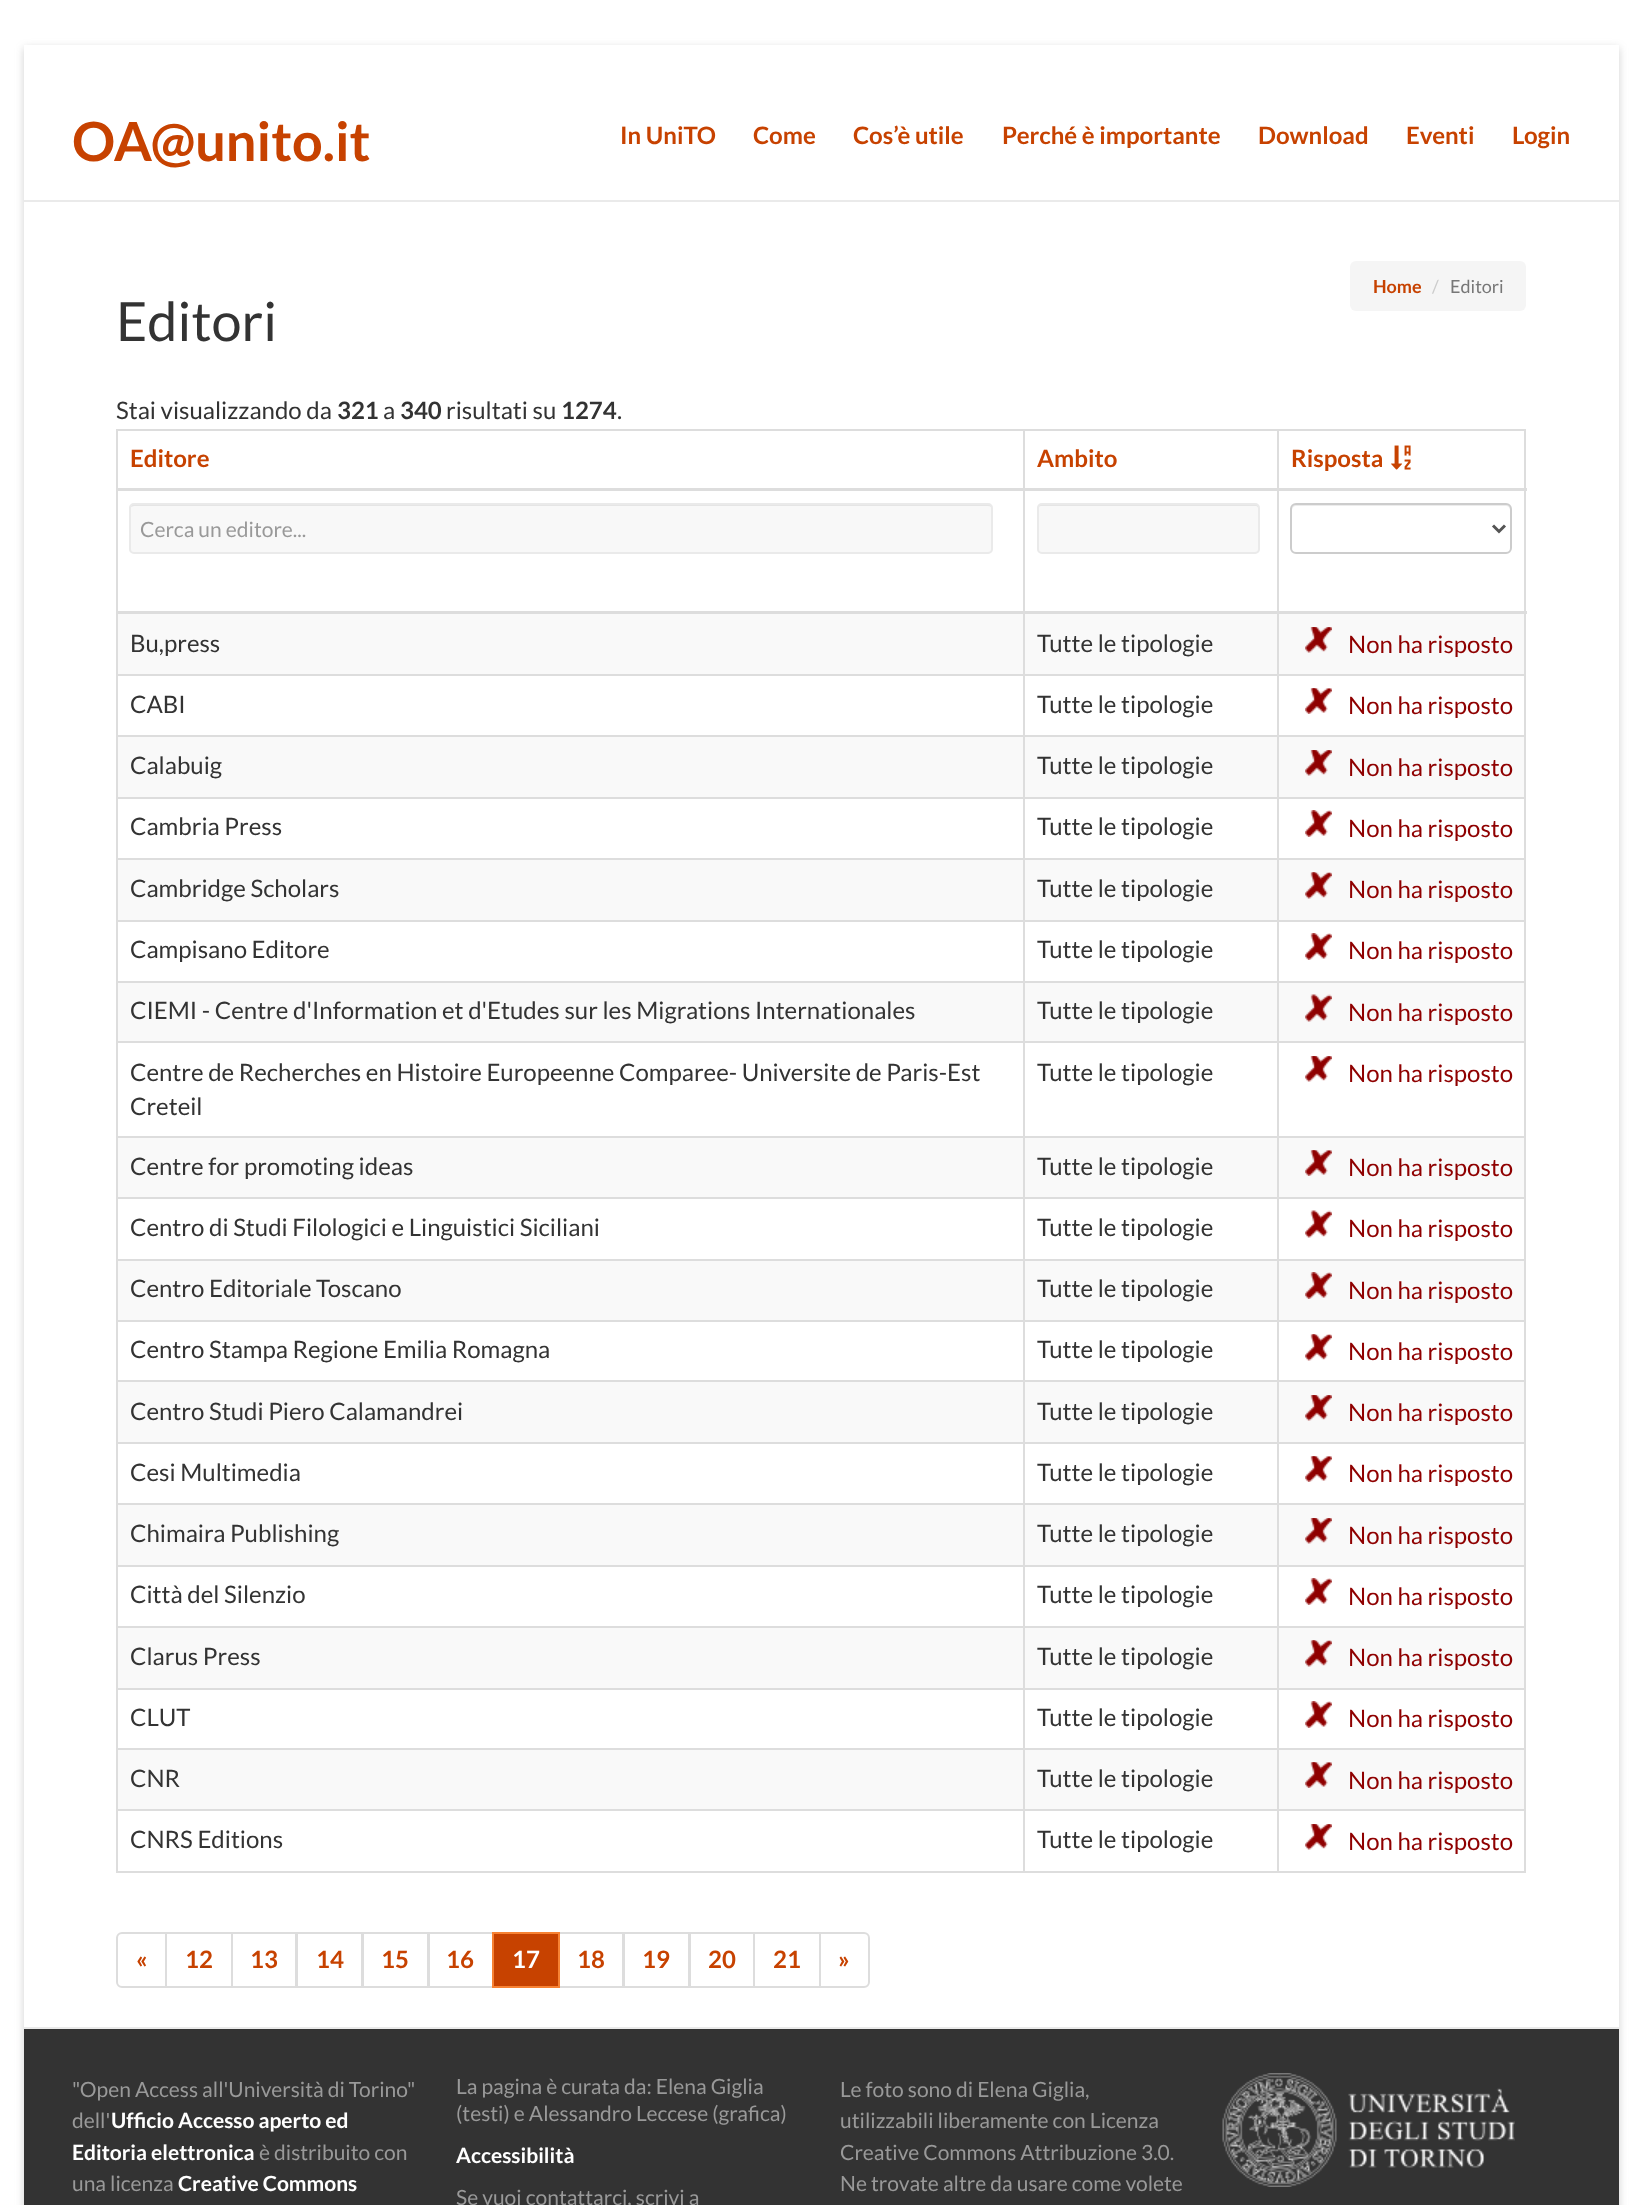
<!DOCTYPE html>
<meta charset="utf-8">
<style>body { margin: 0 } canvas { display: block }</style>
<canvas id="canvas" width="1642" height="2205"></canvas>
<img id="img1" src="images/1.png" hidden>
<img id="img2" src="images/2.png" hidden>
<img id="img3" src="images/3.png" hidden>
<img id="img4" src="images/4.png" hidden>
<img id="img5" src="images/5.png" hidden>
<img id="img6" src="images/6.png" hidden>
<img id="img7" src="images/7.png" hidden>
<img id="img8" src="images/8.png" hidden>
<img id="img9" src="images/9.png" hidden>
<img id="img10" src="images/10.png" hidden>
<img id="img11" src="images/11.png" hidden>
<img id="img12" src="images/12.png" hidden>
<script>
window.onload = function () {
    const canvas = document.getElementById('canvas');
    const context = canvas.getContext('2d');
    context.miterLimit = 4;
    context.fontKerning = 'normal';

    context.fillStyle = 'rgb(255, 255, 255)';
    context.fillRect(0, 0, 1642, 2205);
    context.fillStyle = 'rgba(100, 100, 100, 0.3)';
    context.filter = 'blur(4.5px)';
    context.beginPath();
    context.rect(24, 48, 1595, 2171);
    context.fill();
    context.filter = 'none';
    context.fillStyle = 'rgb(255, 255, 255)';
    context.fillRect(24, 45, 1595, 1982);
    context.fillStyle = 'rgb(234, 234, 234)';
    context.fillRect(24, 200, 1595, 2);
    context.fillStyle = 'rgb(245, 245, 245)';
    context.beginPath();
    context.roundRect(1350, 261, 176, 50, 6);
    context.fill();
    context.fillStyle = 'rgb(221, 221, 221)';
    context.fillRect(116, 429, 1410, 2);
    context.fillRect(1524, 429, 2, 1443);
    context.fillRect(116, 1871, 1410, 2);
    context.fillRect(116, 429, 2, 1443);
    context.fillStyle = 'rgb(249, 249, 249)';
    context.fillRect(118, 614, 1406, 60);
    context.fillStyle = 'rgb(221, 221, 221)';
    context.fillRect(1277, 674, 249, 2);
    context.fillRect(1277, 735, 249, 2);
    context.fillStyle = 'rgb(249, 249, 249)';
    context.fillRect(118, 737, 1406, 60);
    context.fillStyle = 'rgb(221, 221, 221)';
    context.fillRect(1277, 797, 249, 2);
    context.fillRect(1277, 858, 249, 2);
    context.fillStyle = 'rgb(249, 249, 249)';
    context.fillRect(118, 860, 1406, 60);
    context.fillStyle = 'rgb(221, 221, 221)';
    context.fillRect(1277, 920, 249, 2);
    context.fillRect(1277, 981, 249, 2);
    context.fillStyle = 'rgb(249, 249, 249)';
    context.fillRect(118, 983, 1406, 58);
    context.fillStyle = 'rgb(221, 221, 221)';
    context.fillRect(1277, 1041, 249, 2);
    context.fillRect(1277, 1136, 249, 2);
    context.fillStyle = 'rgb(249, 249, 249)';
    context.fillRect(118, 1138, 1406, 59);
    context.fillStyle = 'rgb(221, 221, 221)';
    context.fillRect(1277, 1197, 249, 2);
    context.fillRect(1277, 1259, 249, 2);
    context.fillStyle = 'rgb(249, 249, 249)';
    context.fillRect(118, 1261, 1406, 59);
    context.fillStyle = 'rgb(221, 221, 221)';
    context.fillRect(1277, 1320, 249, 2);
    context.fillRect(1277, 1380, 249, 2);
    context.fillStyle = 'rgb(249, 249, 249)';
    context.fillRect(118, 1382, 1406, 60);
    context.fillStyle = 'rgb(221, 221, 221)';
    context.fillRect(1277, 1442, 249, 2);
    context.fillRect(1277, 1503, 249, 2);
    context.fillStyle = 'rgb(249, 249, 249)';
    context.fillRect(118, 1505, 1406, 60);
    context.fillStyle = 'rgb(221, 221, 221)';
    context.fillRect(1277, 1565, 249, 2);
    context.fillRect(1277, 1626, 249, 2);
    context.fillStyle = 'rgb(249, 249, 249)';
    context.fillRect(118, 1628, 1406, 60);
    context.fillStyle = 'rgb(221, 221, 221)';
    context.fillRect(1277, 1688, 249, 2);
    context.fillRect(1277, 1748, 249, 2);
    context.fillStyle = 'rgb(249, 249, 249)';
    context.fillRect(118, 1750, 1406, 59);
    context.fillStyle = 'rgb(221, 221, 221)';
    context.fillRect(1277, 1809, 249, 2);
    context.fillRect(1277, 1809, 2, 63);
    context.fillRect(1023, 1809, 255, 2);
    context.fillRect(1277, 1748, 2, 63);
    context.fillRect(1023, 1748, 255, 2);
    context.fillRect(1277, 1688, 2, 61);
    context.fillRect(1023, 1688, 255, 2);
    context.fillRect(1277, 1626, 2, 63);
    context.fillRect(1023, 1626, 255, 2);
    context.fillRect(1277, 1565, 2, 63);
    context.fillRect(1023, 1565, 255, 2);
    context.fillRect(1277, 1503, 2, 63);
    context.fillRect(1023, 1503, 255, 2);
    context.fillRect(1277, 1442, 2, 63);
    context.fillRect(1023, 1442, 255, 2);
    context.fillRect(1277, 1380, 2, 63);
    context.fillRect(1023, 1380, 255, 2);
    context.fillRect(1277, 1320, 2, 62);
    context.fillRect(1023, 1320, 255, 2);
    context.fillRect(1277, 1259, 2, 63);
    context.fillRect(1023, 1259, 255, 2);
    context.fillRect(1277, 1197, 2, 63);
    context.fillRect(1023, 1197, 255, 2);
    context.fillRect(1277, 1136, 2, 63);
    context.fillRect(1023, 1136, 255, 2);
    context.fillRect(1277, 1041, 2, 96);
    context.fillRect(1023, 1041, 255, 2);
    context.fillRect(1277, 981, 2, 62);
    context.fillRect(1023, 981, 255, 2);
    context.fillRect(1277, 920, 2, 63);
    context.fillRect(1023, 920, 255, 2);
    context.fillRect(1277, 858, 2, 63);
    context.fillRect(1023, 858, 255, 2);
    context.fillRect(1277, 797, 2, 63);
    context.fillRect(1023, 797, 255, 2);
    context.fillRect(1277, 735, 2, 63);
    context.fillRect(1023, 735, 255, 2);
    context.fillRect(1277, 674, 2, 63);
    context.fillRect(1023, 674, 255, 2);
    context.fillRect(1023, 1809, 2, 63);
    context.fillRect(116, 1809, 909, 2);
    context.fillRect(1023, 1748, 2, 63);
    context.fillRect(116, 1748, 909, 2);
    context.fillRect(1023, 1688, 2, 61);
    context.fillRect(116, 1688, 909, 2);
    context.fillRect(1023, 1626, 2, 63);
    context.fillRect(116, 1626, 909, 2);
    context.fillRect(1023, 1565, 2, 63);
    context.fillRect(116, 1565, 909, 2);
    context.fillRect(1023, 1503, 2, 63);
    context.fillRect(116, 1503, 909, 2);
    context.fillRect(1023, 1442, 2, 63);
    context.fillRect(116, 1442, 909, 2);
    context.fillRect(1023, 1380, 2, 63);
    context.fillRect(116, 1380, 909, 2);
    context.fillRect(1023, 1320, 2, 62);
    context.fillRect(116, 1320, 909, 2);
    context.fillRect(1023, 1259, 2, 63);
    context.fillRect(116, 1259, 909, 2);
    context.fillRect(1023, 1197, 2, 63);
    context.fillRect(116, 1197, 909, 2);
    context.fillRect(1023, 1136, 2, 63);
    context.fillRect(116, 1136, 909, 2);
    context.fillRect(1023, 1041, 2, 96);
    context.fillRect(116, 1041, 909, 2);
    context.fillRect(1023, 981, 2, 62);
    context.fillRect(116, 981, 909, 2);
    context.fillRect(1023, 920, 2, 63);
    context.fillRect(116, 920, 909, 2);
    context.fillRect(1023, 858, 2, 63);
    context.fillRect(116, 858, 909, 2);
    context.fillRect(1023, 797, 2, 63);
    context.fillRect(116, 797, 909, 2);
    context.fillRect(1023, 735, 2, 63);
    context.fillRect(116, 735, 909, 2);
    context.fillRect(1023, 674, 2, 63);
    context.fillRect(116, 674, 909, 2);
    context.fillRect(1023, 429, 2, 246);
    context.fillRect(1277, 429, 2, 246);
    context.fillRect(116, 488, 1411, 3);
    context.drawImage(document.getElementById('img1'), 1391, 445, 20, 25);
    context.fillRect(116, 611, 1411, 3);
    context.fillStyle = 'rgb(236, 236, 236)';
    context.beginPath();
    context.moveTo(1296, 506);
    context.lineTo(1506, 506);
    context.bezierCurveTo(1508, 506, 1510, 508, 1510, 510);
    context.lineTo(1510, 550);
    context.bezierCurveTo(1511, 549, 1511, 548, 1511, 547);
    context.lineTo(1511, 509);
    context.bezierCurveTo(1511, 506, 1509, 504, 1506, 504);
    context.lineTo(1297, 504);
    context.bezierCurveTo(1294, 504, 1292, 506, 1292, 509);
    context.lineTo(1292, 510);
    context.bezierCurveTo(1292, 508, 1294, 506, 1296, 506);
    context.closePath();
    context.fill();
    context.beginPath();
    context.roundRect(1291, 504, 220, 49, 5);
    context.strokeStyle = 'rgb(204, 204, 204)';
    context.lineWidth = 2;
    context.stroke();
    context.beginPath();
    context.moveTo(1493, 525.5);
    context.lineTo(1499, 531.5);
    context.lineTo(1505, 525.5);
    context.strokeStyle = 'rgb(85, 85, 85)';
    context.lineWidth = 3;
    context.stroke();
    context.fillStyle = 'rgb(248, 248, 248)';
    context.beginPath();
    context.roundRect(129, 503, 864, 51, 5);
    context.fill();
    context.fillStyle = 'rgb(229, 229, 229)';
    context.beginPath();
    context.moveTo(134, 506);
    context.lineTo(988, 506);
    context.bezierCurveTo(990, 506, 992, 507, 992, 508);
    context.lineTo(991, 505);
    context.lineTo(990, 504);
    context.lineTo(134, 504);
    context.bezierCurveTo(132, 504, 131, 505, 131, 507);
    context.closePath();
    context.fill();
    context.beginPath();
    context.roundRect(130, 504, 862, 49, 4);
    context.strokeStyle = 'rgb(234, 234, 234)';
    context.lineWidth = 2;
    context.stroke();
    context.fillStyle = 'rgb(248, 248, 248)';
    context.beginPath();
    context.roundRect(1037, 503, 223, 51, 5);
    context.fill();
    context.fillStyle = 'rgb(229, 229, 229)';
    context.beginPath();
    context.moveTo(1041, 506);
    context.lineTo(1256, 506);
    context.bezierCurveTo(1257, 506, 1258, 507, 1258, 508);
    context.lineTo(1258, 551);
    context.bezierCurveTo(1259, 551, 1259, 550, 1259, 549);
    context.lineTo(1259, 507);
    context.bezierCurveTo(1259, 505, 1258, 504, 1256, 504);
    context.lineTo(1041, 504);
    context.bezierCurveTo(1039, 504, 1038, 505, 1038, 507);
    context.lineTo(1038, 508);
    context.bezierCurveTo(1038, 507, 1039, 506, 1041, 506);
    context.closePath();
    context.fill();
    context.beginPath();
    context.roundRect(1038, 504, 221, 49, 4);
    context.stroke();
    context.drawImage(document.getElementById('img2'), 1305, 627, 27, 26);
    context.drawImage(document.getElementById('img3'), 1305, 688, 27, 26);
    context.drawImage(document.getElementById('img2'), 1305, 750, 27, 26);
    context.drawImage(document.getElementById('img4'), 1305, 810, 27, 27);
    context.drawImage(document.getElementById('img5'), 1305, 872, 27, 27);
    context.drawImage(document.getElementById('img4'), 1305, 933, 27, 27);
    context.drawImage(document.getElementById('img6'), 1305, 994, 27, 28);
    context.drawImage(document.getElementById('img7'), 1305, 1056, 27, 26);
    context.drawImage(document.getElementById('img8'), 1305, 1150, 27, 26);
    context.drawImage(document.getElementById('img9'), 1305, 1210, 27, 28);
    context.drawImage(document.getElementById('img10'), 1305, 1272, 27, 27);
    context.drawImage(document.getElementById('img11'), 1305, 1334, 27, 27);
    context.drawImage(document.getElementById('img2'), 1305, 1395, 27, 26);
    context.drawImage(document.getElementById('img3'), 1305, 1456, 27, 26);
    context.drawImage(document.getElementById('img2'), 1305, 1518, 27, 26);
    context.drawImage(document.getElementById('img4'), 1305, 1578, 27, 27);
    context.drawImage(document.getElementById('img5'), 1305, 1640, 27, 27);
    context.drawImage(document.getElementById('img4'), 1305, 1701, 27, 27);
    context.drawImage(document.getElementById('img8'), 1305, 1762, 27, 26);
    context.drawImage(document.getElementById('img7'), 1305, 1824, 27, 26);
    context.beginPath();
    context.roundRect(117, 1933, 49, 54, [5, 0, 0, 5]);
    context.strokeStyle = 'rgb(221, 221, 221)';
    context.stroke();
    context.strokeRect(166, 1933, 66, 54);
    context.strokeRect(232, 1933, 64, 54);
    context.strokeRect(297, 1933, 65, 54);
    context.strokeRect(363, 1933, 65, 54);
    context.strokeRect(429, 1933, 64, 54);
    context.strokeRect(559, 1933, 64, 54);
    context.fillStyle = 'rgb(199, 66, 0)';
    context.beginPath();
    context.rect(493, 1933, 66, 54);
    context.fill();
    context.strokeStyle = 'rgb(247, 130, 51)';
    context.stroke();
    context.strokeStyle = 'rgb(221, 221, 221)';
    context.strokeRect(624, 1933, 65, 54);
    context.strokeRect(690, 1933, 64, 54);
    context.strokeRect(754, 1933, 66, 54);
    context.fillStyle = 'rgb(255, 255, 255)';
    context.beginPath();
    context.roundRect(820, 1933, 49, 54, [0, 5, 5, 0]);
    context.fill();
    context.stroke();
    context.fillStyle = 'rgb(51, 51, 51)';
    context.fillRect(24, 2029, 1595, 176);
    context.fillStyle = 'rgb(234, 234, 234)';
    context.fillRect(24, 2027, 1595, 2);
    context.drawImage(document.getElementById('img12'), 1222, 2073, 293, 114);
    context.font = 'bold 54px Lato';
    context.fillStyle = 'rgb(199, 66, 0)';
    context.fillText('OA@unito.it', 72, 161);
    context.font = 'bold 24px Lato';
    context.fillText('In UniTO', 620, 144);
    context.fillText('Come', 753, 144);
    context.fillText('Cos’è utile', 853, 144);
    context.fillText('Perché è importante', 1002, 144);
    context.fillText('Download', 1258, 144);
    context.fillText('Eventi', 1406, 144);
    context.fillText('Login', 1512, 144);
    context.font = 'bold 18px Lato';
    context.fillText('Home', 1373, 293);
    context.font = '18px Lato';
    context.fillStyle = 'rgb(204, 204, 204)';
    context.fillText('/', 1432, 293);
    context.fillStyle = 'rgb(119, 119, 119)';
    context.fillText('Editori', 1450, 293);
    context.font = '54px Lato';
    context.fillStyle = 'rgb(51, 51, 51)';
    context.fillText('Editori', 116, 341);
    context.font = '24px Lato';
    context.fillText('Stai visualizzando da', 116, 419);
    context.font = 'bold 24px Lato';
    context.fillText('321', 337, 419);
    context.font = '24px Lato';
    context.fillText('a', 383, 419);
    context.font = 'bold 24px Lato';
    context.fillText('340', 400, 419);
    context.font = '24px Lato';
    context.fillText('risultati su', 446, 419);
    context.font = 'bold 24px Lato';
    context.fillText('1274', 561, 419);
    context.font = '24px Lato';
    context.fillText('.', 617, 419);
    context.font = 'bold 24px Lato';
    context.fillStyle = 'rgb(199, 66, 0)';
    context.fillText('Editore', 130, 467);
    context.fillText('Ambito', 1037, 467);
    context.fillText('Risposta', 1291, 467);
    context.font = '21px Lato';
    context.fillStyle = 'rgb(153, 153, 153)';
    context.fillText('Cerca un editore...', 140, 537);
    context.font = '24px Lato';
    context.fillStyle = 'rgb(51, 51, 51)';
    context.fillText('Bu,press', 130, 652);
    context.fillText('Tutte le tipologie', 1037, 652);
    context.fillStyle = 'rgb(143, 0, 0)';
    context.fillText('Non ha risposto', 1348, 653);
    context.fillStyle = 'rgb(51, 51, 51)';
    context.fillText('CABI', 130, 713);
    context.fillText('Tutte le tipologie', 1037, 713);
    context.fillStyle = 'rgb(143, 0, 0)';
    context.fillText('Non ha risposto', 1348, 714);
    context.fillStyle = 'rgb(51, 51, 51)';
    context.fillText('Calabuig', 130, 774);
    context.fillText('Tutte le tipologie', 1037, 774);
    context.fillStyle = 'rgb(143, 0, 0)';
    context.fillText('Non ha risposto', 1348, 776);
    context.fillStyle = 'rgb(51, 51, 51)';
    context.fillText('Cambria Press', 130, 835);
    context.fillText('Tutte le tipologie', 1037, 835);
    context.fillStyle = 'rgb(143, 0, 0)';
    context.fillText('Non ha risposto', 1348, 837);
    context.fillStyle = 'rgb(51, 51, 51)';
    context.fillText('Cambridge Scholars', 130, 897);
    context.fillText('Tutte le tipologie', 1037, 897);
    context.fillStyle = 'rgb(143, 0, 0)';
    context.fillText('Non ha risposto', 1348, 898);
    context.fillStyle = 'rgb(51, 51, 51)';
    context.fillText('Campisano Editore', 130, 958);
    context.fillText('Tutte le tipologie', 1037, 958);
    context.fillStyle = 'rgb(143, 0, 0)';
    context.fillText('Non ha risposto', 1348, 959);
    context.fillStyle = 'rgb(51, 51, 51)';
    context.fillText('CIEMI - Centre d\'Information et d\'Etudes sur les Migrations Internationales', 130, 1019);
    context.fillText('Tutte le tipologie', 1037, 1019);
    context.fillStyle = 'rgb(143, 0, 0)';
    context.fillText('Non ha risposto', 1348, 1021);
    context.fillStyle = 'rgb(51, 51, 51)';
    context.fillText('Centre de Recherches en Histoire Europeenne Comparee- Universite de Paris-Est', 130, 1081);
    context.fillText('Creteil', 130, 1115);
    context.fillText('Tutte le tipologie', 1037, 1081);
    context.fillStyle = 'rgb(143, 0, 0)';
    context.fillText('Non ha risposto', 1348, 1082);
    context.fillStyle = 'rgb(51, 51, 51)';
    context.fillText('Centre for promoting ideas', 130, 1175);
    context.fillText('Tutte le tipologie', 1037, 1175);
    context.fillStyle = 'rgb(143, 0, 0)';
    context.fillText('Non ha risposto', 1348, 1176);
    context.fillStyle = 'rgb(51, 51, 51)';
    context.fillText('Centro di Studi Filologici e Linguistici Siciliani', 130, 1236);
    context.fillText('Tutte le tipologie', 1037, 1236);
    context.fillStyle = 'rgb(143, 0, 0)';
    context.fillText('Non ha risposto', 1348, 1237);
    context.fillStyle = 'rgb(51, 51, 51)';
    context.fillText('Centro Editoriale Toscano', 130, 1297);
    context.fillText('Tutte le tipologie', 1037, 1297);
    context.fillStyle = 'rgb(143, 0, 0)';
    context.fillText('Non ha risposto', 1348, 1299);
    context.fillStyle = 'rgb(51, 51, 51)';
    context.fillText('Centro Stampa Regione Emilia Romagna', 130, 1358);
    context.fillText('Tutte le tipologie', 1037, 1358);
    context.fillStyle = 'rgb(143, 0, 0)';
    context.fillText('Non ha risposto', 1348, 1360);
    context.fillStyle = 'rgb(51, 51, 51)';
    context.fillText('Centro Studi Piero Calamandrei', 130, 1420);
    context.fillText('Tutte le tipologie', 1037, 1420);
    context.fillStyle = 'rgb(143, 0, 0)';
    context.fillText('Non ha risposto', 1348, 1421);
    context.fillStyle = 'rgb(51, 51, 51)';
    context.fillText('Cesi Multimedia', 130, 1481);
    context.fillText('Tutte le tipologie', 1037, 1481);
    context.fillStyle = 'rgb(143, 0, 0)';
    context.fillText('Non ha risposto', 1348, 1482);
    context.fillStyle = 'rgb(51, 51, 51)';
    context.fillText('Chimaira Publishing', 130, 1542);
    context.fillText('Tutte le tipologie', 1037, 1542);
    context.fillStyle = 'rgb(143, 0, 0)';
    context.fillText('Non ha risposto', 1348, 1544);
    context.fillStyle = 'rgb(51, 51, 51)';
    context.fillText('Città del Silenzio', 130, 1603);
    context.fillText('Tutte le tipologie', 1037, 1603);
    context.fillStyle = 'rgb(143, 0, 0)';
    context.fillText('Non ha risposto', 1348, 1605);
    context.fillStyle = 'rgb(51, 51, 51)';
    context.fillText('Clarus Press', 130, 1665);
    context.fillText('Tutte le tipologie', 1037, 1665);
    context.fillStyle = 'rgb(143, 0, 0)';
    context.fillText('Non ha risposto', 1348, 1666);
    context.fillStyle = 'rgb(51, 51, 51)';
    context.fillText('CLUT', 130, 1726);
    context.fillText('Tutte le tipologie', 1037, 1726);
    context.fillStyle = 'rgb(143, 0, 0)';
    context.fillText('Non ha risposto', 1348, 1727);
    context.fillStyle = 'rgb(51, 51, 51)';
    context.fillText('CNR', 130, 1787);
    context.fillText('Tutte le tipologie', 1037, 1787);
    context.fillStyle = 'rgb(143, 0, 0)';
    context.fillText('Non ha risposto', 1348, 1789);
    context.fillStyle = 'rgb(51, 51, 51)';
    context.fillText('CNRS Editions', 130, 1848);
    context.fillText('Tutte le tipologie', 1037, 1848);
    context.fillStyle = 'rgb(143, 0, 0)';
    context.fillText('Non ha risposto', 1348, 1850);
    context.font = 'bold 24px Lato';
    context.fillStyle = 'rgb(199, 66, 0)';
    context.fillText('«', 136, 1968);
    context.fillText('12', 185, 1968);
    context.fillText('13', 250, 1968);
    context.fillText('14', 316, 1968);
    context.fillText('15', 381, 1968);
    context.fillText('16', 446, 1968);
    context.fillStyle = 'rgb(255, 255, 255)';
    context.fillText('17', 512, 1968);
    context.fillStyle = 'rgb(199, 66, 0)';
    context.fillText('18', 577, 1968);
    context.fillText('19', 642, 1968);
    context.fillText('20', 708, 1968);
    context.fillText('21', 773, 1968);
    context.fillText('»', 838, 1968);
    context.font = '21px Lato';
    context.fillStyle = 'rgb(153, 153, 153)';
    context.fillText('"Open Access all\'Università di Torino"', 72, 2097);
    context.fillText('dell\'', 72, 2128);
    context.font = 'bold 21px Lato';
    context.fillStyle = 'rgb(255, 255, 255)';
    context.fillText('Ufficio Accesso aperto ed', 111, 2128);
    context.fillText('Editoria elettronica', 72, 2160);
    context.font = '21px Lato';
    context.fillStyle = 'rgb(153, 153, 153)';
    context.fillText('è distribuito con', 259, 2160);
    context.fillText('una licenza', 72, 2191);
    context.font = 'bold 21px Lato';
    context.fillStyle = 'rgb(255, 255, 255)';
    context.fillText('Creative Commons', 178, 2191);
    context.font = '21px Lato';
    context.fillStyle = 'rgb(153, 153, 153)';
    context.fillText('La pagina è curata da: Elena Giglia', 456, 2094);
    context.fillText('(testi) e Alessandro Leccese (grafica)', 456, 2121);
    context.font = 'bold 21px Lato';
    context.fillStyle = 'rgb(255, 255, 255)';
    context.fillText('Accessibilità', 456, 2163);
    context.font = '21px Lato';
    context.fillStyle = 'rgb(153, 153, 153)';
    context.fillText('Se vuoi contattarci, scrivi a', 456, 2205);
    context.fillText('Le foto sono di Elena Giglia,', 840, 2097);
    context.fillText('utilizzabili liberamente con Licenza', 840, 2128);
    context.fillText('Creative Commons Attribuzione 3.0.', 840, 2160);
    context.fillText('Ne trovate altre da usare come volete', 840, 2191);
};
</script>
